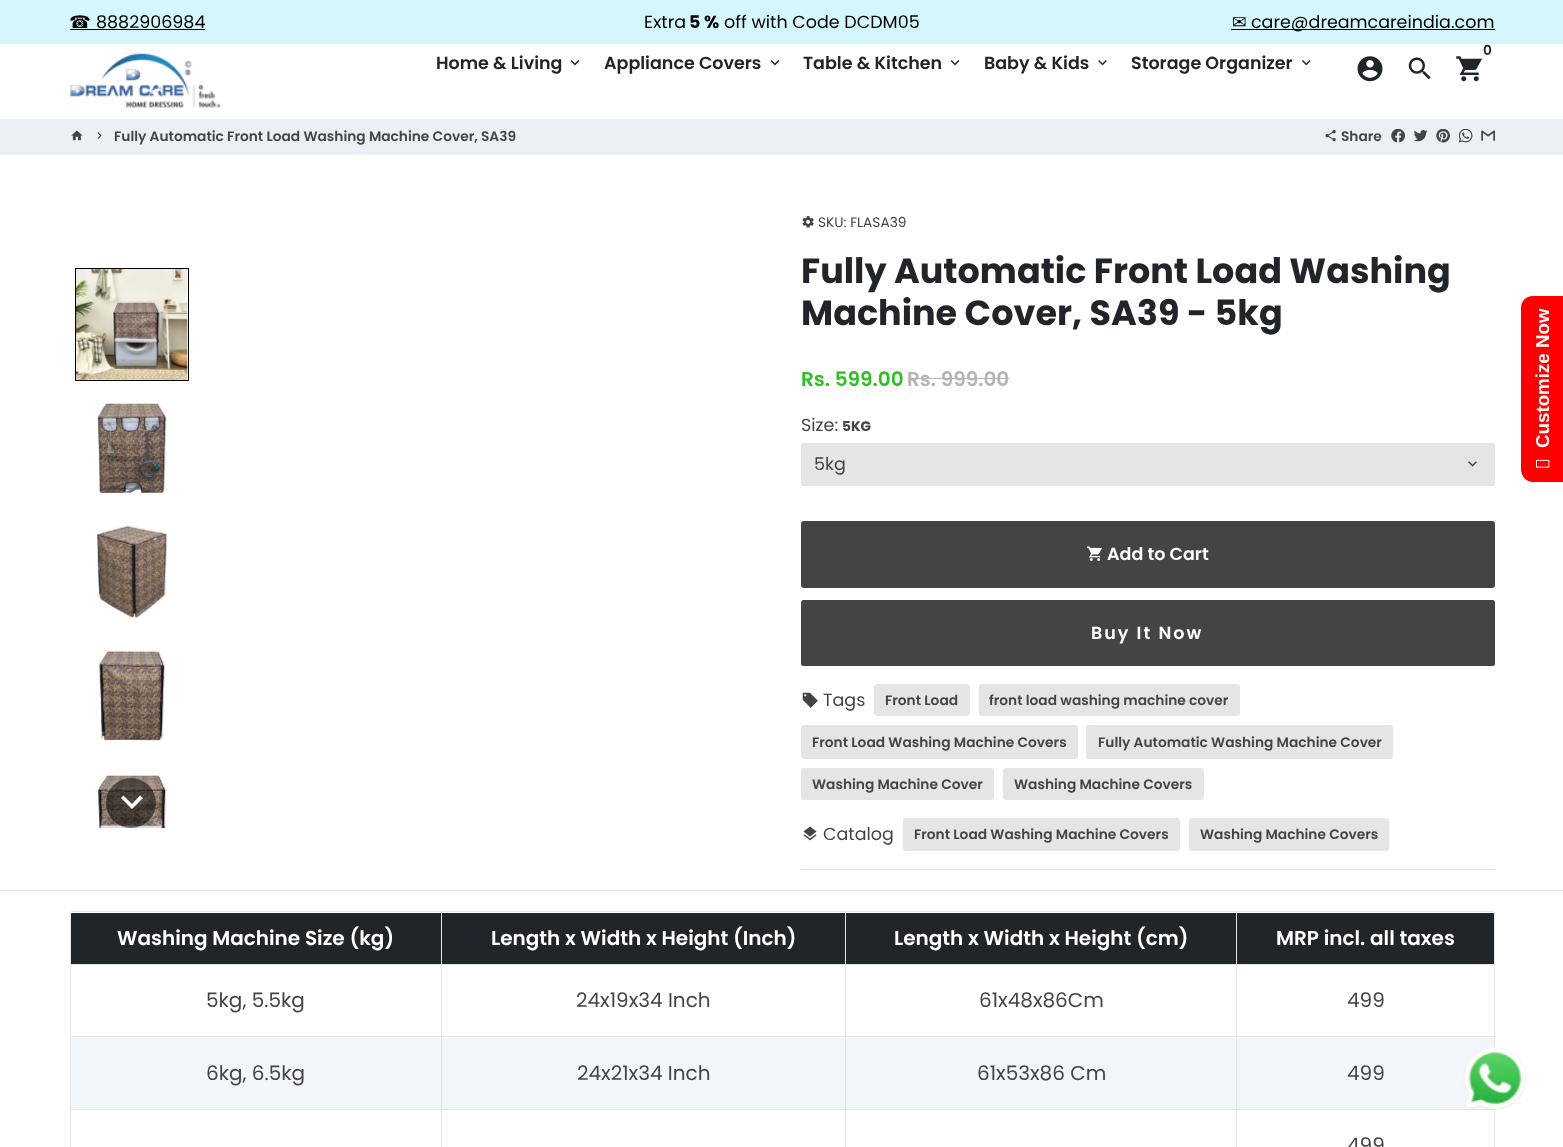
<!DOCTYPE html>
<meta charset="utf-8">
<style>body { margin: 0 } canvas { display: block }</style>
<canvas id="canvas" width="1563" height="1147"></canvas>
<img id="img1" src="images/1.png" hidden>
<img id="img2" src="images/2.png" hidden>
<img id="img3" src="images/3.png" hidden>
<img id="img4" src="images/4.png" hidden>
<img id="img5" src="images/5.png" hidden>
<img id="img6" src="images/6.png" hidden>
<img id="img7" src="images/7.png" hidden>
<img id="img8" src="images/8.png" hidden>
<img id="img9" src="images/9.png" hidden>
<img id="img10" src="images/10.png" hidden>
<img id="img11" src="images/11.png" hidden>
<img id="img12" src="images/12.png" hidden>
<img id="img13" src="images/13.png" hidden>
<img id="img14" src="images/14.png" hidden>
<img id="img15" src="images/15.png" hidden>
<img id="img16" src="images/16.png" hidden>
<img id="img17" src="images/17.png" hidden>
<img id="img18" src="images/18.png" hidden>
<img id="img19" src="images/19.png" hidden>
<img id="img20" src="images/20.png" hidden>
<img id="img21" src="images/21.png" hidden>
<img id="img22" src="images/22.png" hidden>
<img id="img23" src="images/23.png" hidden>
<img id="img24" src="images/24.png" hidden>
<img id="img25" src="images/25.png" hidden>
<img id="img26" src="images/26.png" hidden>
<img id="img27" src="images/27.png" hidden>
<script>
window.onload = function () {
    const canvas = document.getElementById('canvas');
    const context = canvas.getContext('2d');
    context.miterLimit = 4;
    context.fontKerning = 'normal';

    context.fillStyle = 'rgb(255, 255, 255)';
    context.fillRect(0, 0, 1563, 1147);
    context.fillStyle = 'rgb(212, 247, 253)';
    context.fillRect(0, 0, 1563, 44);
    context.fillStyle = 'rgb(0, 0, 0)';
    context.fillRect(70, 29, 135, 1);
    context.fillRect(1231, 29, 264, 1);
    context.drawImage(document.getElementById('img1'), 1456, 56, 26, 26);
    context.drawImage(document.getElementById('img2'), 1357, 56, 26, 26);
    context.drawImage(document.getElementById('img3'), 1408, 57, 23, 23);
    context.drawImage(document.getElementById('img4'), 69, 53, 151, 55);
    context.drawImage(document.getElementById('img5'), 570, 60, 10, 6);
    context.drawImage(document.getElementById('img5'), 770, 60, 10, 6);
    context.drawImage(document.getElementById('img5'), 950, 60, 10, 6);
    context.drawImage(document.getElementById('img6'), 1098, 60, 9, 6);
    context.drawImage(document.getElementById('img7'), 1302, 60, 9, 6);
    context.fillStyle = 'rgb(235, 240, 244)';
    context.fillRect(0, 119, 1563, 36);
    context.drawImage(document.getElementById('img8'), 71, 130, 12, 11);
    context.drawImage(document.getElementById('img9'), 97, 132, 5, 7);
    context.drawImage(document.getElementById('img10'), 1325, 129, 11, 13);
    context.drawImage(document.getElementById('img11'), 1391, 129, 14, 14);
    context.drawImage(document.getElementById('img12'), 1414, 130, 14, 12);
    context.drawImage(document.getElementById('img13'), 1436, 129, 14, 14);
    context.drawImage(document.getElementById('img14'), 1459, 129, 14, 14);
    context.drawImage(document.getElementById('img15'), 1481, 130, 14, 11);
    context.strokeStyle = 'rgb(0, 0, 0)';
    context.strokeRect(75.5, 268.5, 113, 112);
    context.drawImage(document.getElementById('img16'), 76, 269, 112, 112);
    context.drawImage(document.getElementById('img17'), 97, 403, 70, 91);
    context.drawImage(document.getElementById('img18'), 96, 525, 72, 93);
    context.drawImage(document.getElementById('img19'), 99, 650, 66, 92);
    context.drawImage(document.getElementById('img20'), 97, 774, 70, 54);
    context.fillStyle = 'rgba(0, 0, 0, 0.5)';
    context.beginPath();
    context.arc(131, 803, 25, 0, 2 * Math.PI);
    context.fill();
    context.fillStyle = 'rgb(255, 255, 255)';
    context.beginPath();
    context.moveTo(123.5, 795.5);
    context.lineTo(132, 804);
    context.lineTo(140, 795.5);
    context.lineTo(143, 798);
    context.lineTo(132, 809);
    context.lineTo(121, 798);
    context.closePath();
    context.fill();
    context.drawImage(document.getElementById('img21'), 802, 216, 12, 12);
    context.fillStyle = 'rgb(180, 180, 180)';
    context.fillRect(908, 378, 101, 1);
    context.fillStyle = 'rgb(229, 229, 229)';
    context.beginPath();
    context.roundRect(801, 443, 694, 43, 2.5);
    context.fill();
    context.drawImage(document.getElementById('img22'), 1468, 461, 9, 6);
    context.beginPath();
    context.roundRect(801.5, 443.5, 693, 42, 2);
    context.strokeStyle = 'rgb(229, 229, 229)';
    context.stroke();
    context.fillStyle = 'rgb(68, 68, 68)';
    context.beginPath();
    context.roundRect(801.5, 521.5, 693, 66, 2);
    context.fill();
    context.strokeStyle = 'rgb(68, 68, 68)';
    context.stroke();
    context.drawImage(document.getElementById('img23'), 1086, 546, 16, 15);
    context.beginPath();
    context.roundRect(801, 600, 694, 66, 2.5);
    context.fill();
    context.drawImage(document.getElementById('img24'), 802, 692, 16, 16);
    context.fillStyle = 'rgb(229, 229, 229)';
    context.beginPath();
    context.roundRect(874.5, 684.5, 95, 31, 2);
    context.fill();
    context.strokeStyle = 'rgb(229, 229, 229)';
    context.stroke();
    context.beginPath();
    context.roundRect(979.5, 684.5, 260, 31, 2);
    context.fill();
    context.stroke();
    context.beginPath();
    context.roundRect(801.5, 725.5, 276, 33, 2);
    context.fill();
    context.stroke();
    context.beginPath();
    context.roundRect(1086.5, 725.5, 306, 33, 2);
    context.fill();
    context.stroke();
    context.beginPath();
    context.roundRect(801.5, 768.5, 192, 31, 2);
    context.fill();
    context.stroke();
    context.beginPath();
    context.roundRect(1003.5, 768.5, 200, 31, 2);
    context.fill();
    context.stroke();
    context.drawImage(document.getElementById('img25'), 803, 826, 14, 15);
    context.beginPath();
    context.roundRect(903.5, 818.5, 276, 32, 2);
    context.fill();
    context.stroke();
    context.beginPath();
    context.roundRect(1189.5, 818.5, 199, 32, 2);
    context.fill();
    context.stroke();
    context.fillRect(801, 869, 694, 1);
    context.fillRect(0, 890, 1563, 1);
    context.beginPath();
    context.roundRect(70.5, 911.5, 1424, 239, 2);
    context.stroke();
    context.fillStyle = 'rgb(33, 37, 41)';
    context.beginPath();
    context.roundRect(71, 913, 372, 52, [1, 0, 0, 0]);
    context.fill();
    context.fillStyle = 'rgb(229, 229, 229)';
    context.fillRect(441, 913, 1, 125);
    context.fillRect(71, 964, 372, 1);
    context.fillStyle = 'rgb(33, 37, 41)';
    context.fillRect(443, 913, 402, 51);
    context.fillStyle = 'rgb(229, 229, 229)';
    context.fillRect(845, 913, 1, 125);
    context.fillRect(443, 964, 403, 1);
    context.fillStyle = 'rgb(33, 37, 41)';
    context.fillRect(846, 913, 392, 51);
    context.fillStyle = 'rgb(229, 229, 229)';
    context.fillRect(1236, 913, 1, 125);
    context.fillRect(846, 964, 392, 1);
    context.fillStyle = 'rgb(33, 37, 41)';
    context.beginPath();
    context.roundRect(1238, 913, 256, 52, [0, 1, 0, 0]);
    context.fill();
    context.fillStyle = 'rgb(229, 229, 229)';
    context.fillRect(1238, 964, 256, 1);
    context.fillRect(71, 1036, 1423, 1);
    context.fillStyle = 'rgb(243, 246, 249)';
    context.fillRect(71, 1038, 1423, 71);
    context.fillStyle = 'rgb(229, 229, 229)';
    context.fillRect(441, 1038, 1, 109);
    context.fillRect(71, 1109, 372, 1);
    context.fillRect(845, 1038, 1, 109);
    context.fillRect(443, 1109, 403, 1);
    context.fillRect(1236, 1038, 1, 109);
    context.fillRect(846, 1109, 648, 1);
    context.fillStyle = 'rgb(255, 0, 0)';
    context.beginPath();
    context.moveTo(1521, 469);
    context.lineTo(1521, 308);
    context.bezierCurveTo(1521, 301, 1526, 296, 1533, 296);
    context.lineTo(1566, 296);
    context.lineTo(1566, 482);
    context.lineTo(1533, 482);
    context.bezierCurveTo(1526, 482, 1521, 476, 1521, 469);
    context.closePath();
    context.fill();
    context.drawImage(document.getElementById('img26'), 1536, 459, 14, 9);
    context.drawImage(document.getElementById('img27'), 1463, 1047, 64, 63);
    context.font = '17.5px DejaVu Sans';
    context.fillStyle = 'rgb(0, 0, 0)';
    context.fillText('☎', 69, 28);
    context.font = '17.5px Poppins';
    context.fillText('8882906984', 96, 28);
    context.fillText('Extra', 644, 28);
    context.font = 'bold 17.5px Poppins';
    context.fillText('5 %', 689, 28);
    context.font = '17.5px Poppins';
    context.fillText('off with Code DCDM05', 724, 28);
    context.font = '17.5px DejaVu Sans';
    context.fillText('✉', 1232, 28);
    context.font = '17.5px Poppins';
    context.fillText('care@dreamcareindia.com', 1251, 28);
    context.font = '600 13.75px Poppins';
    context.fillStyle = 'rgb(33, 37, 41)';
    context.fillText('0', 1483, 55);
    context.font = '600 17.5px Poppins';
    context.fillText('Home & Living', 436, 69);
    context.fillText('Appliance Covers', 604, 69);
    context.fillText('Table & Kitchen', 803, 69);
    context.fillText('Baby & Kids', 984, 69);
    context.fillText('Storage Organizer', 1131, 69);
    context.font = '600 13.75px Poppins';
    context.fillStyle = 'rgb(68, 68, 68)';
    context.fillText('Fully Automatic Front Load Washing Machine Cover, SA39', 114, 141);
    context.fillText('Share', 1341, 141);
    context.font = '13.75px Poppins';
    context.fillText('SKU: FLASA39', 818, 227);
    context.font = 'bold 35px Poppins';
    context.fillStyle = 'rgb(33, 37, 41)';
    context.fillText('Fully Automatic Front Load Washing', 801, 283);
    context.fillText('Machine Cover, SA39 - 5kg', 801, 325);
    context.font = '600 20px Poppins';
    context.fillStyle = 'rgb(43, 194, 32)';
    context.fillText('Rs. 599.00', 801, 386);
    context.fillStyle = 'rgb(180, 180, 180)';
    context.fillText('Rs. 999.00', 907, 386);
    context.font = '17.5px Poppins';
    context.fillStyle = 'rgb(68, 68, 68)';
    context.fillText('Size:', 801, 431);
    context.font = 'bold 13.75px Poppins';
    context.fillText('5KG', 842, 431);
    context.font = '17.5px Poppins';
    context.fillText('5kg', 814, 470);
    context.font = '600 17.5px Poppins';
    context.fillStyle = 'rgb(255, 255, 255)';
    context.fillText('Add to Cart', 1107, 560);
    context.letterSpacing = '2px';
    context.fillText('Buy It Now', 1091, 639);
    context.letterSpacing = '0px';
    context.font = '17.5px Poppins';
    context.fillStyle = 'rgb(68, 68, 68)';
    context.fillText('Tags', 823, 706);
    context.font = '600 13.75px Poppins';
    context.fillText('Front Load', 885, 705);
    context.fillText('front load washing machine cover', 989, 705);
    context.fillText('Front Load Washing Machine Covers', 812, 747);
    context.fillText('Fully Automatic Washing Machine Cover', 1098, 747);
    context.fillText('Washing Machine Cover', 812, 789);
    context.fillText('Washing Machine Covers', 1014, 789);
    context.font = '17.5px Poppins';
    context.fillText('Catalog', 823, 840);
    context.font = '600 13.75px Poppins';
    context.fillText('Front Load Washing Machine Covers', 914, 839);
    context.fillText('Washing Machine Covers', 1200, 839);
    context.font = '600 20px Poppins';
    context.fillStyle = 'rgb(255, 255, 255)';
    context.fillText('Washing Machine Size (kg)', 117, 945);
    context.fillText('Length x Width x Height (Inch)', 491, 945);
    context.fillText('Length x Width x Height (cm)', 894, 945);
    context.fillText('MRP incl. all taxes', 1276, 945);
    context.font = '20px Poppins';
    context.fillStyle = 'rgb(68, 68, 68)';
    context.fillText('5kg, 5.5kg', 206, 1007);
    context.fillText('24x19x34 Inch', 576, 1007);
    context.fillText('61x48x86Cm', 979, 1007);
    context.fillText('499', 1347, 1007);
    context.fillText('6kg, 6.5kg', 206, 1080);
    context.fillText('24x21x34 Inch', 577, 1080);
    context.fillText('61x53x86 Cm', 977, 1080);
    context.fillText('499', 1347, 1080);
    context.fillText('499', 1347, 1152);
    context.font = 'bold 18.75px Liberation Sans';
    context.fillStyle = 'rgb(255, 255, 255)';
    context.save();
    context.translate(1549, 448);
    context.rotate(-90 * Math.PI / 180);
    context.fillText('Customize Now', 0, 0);
    context.restore();
};
</script>
